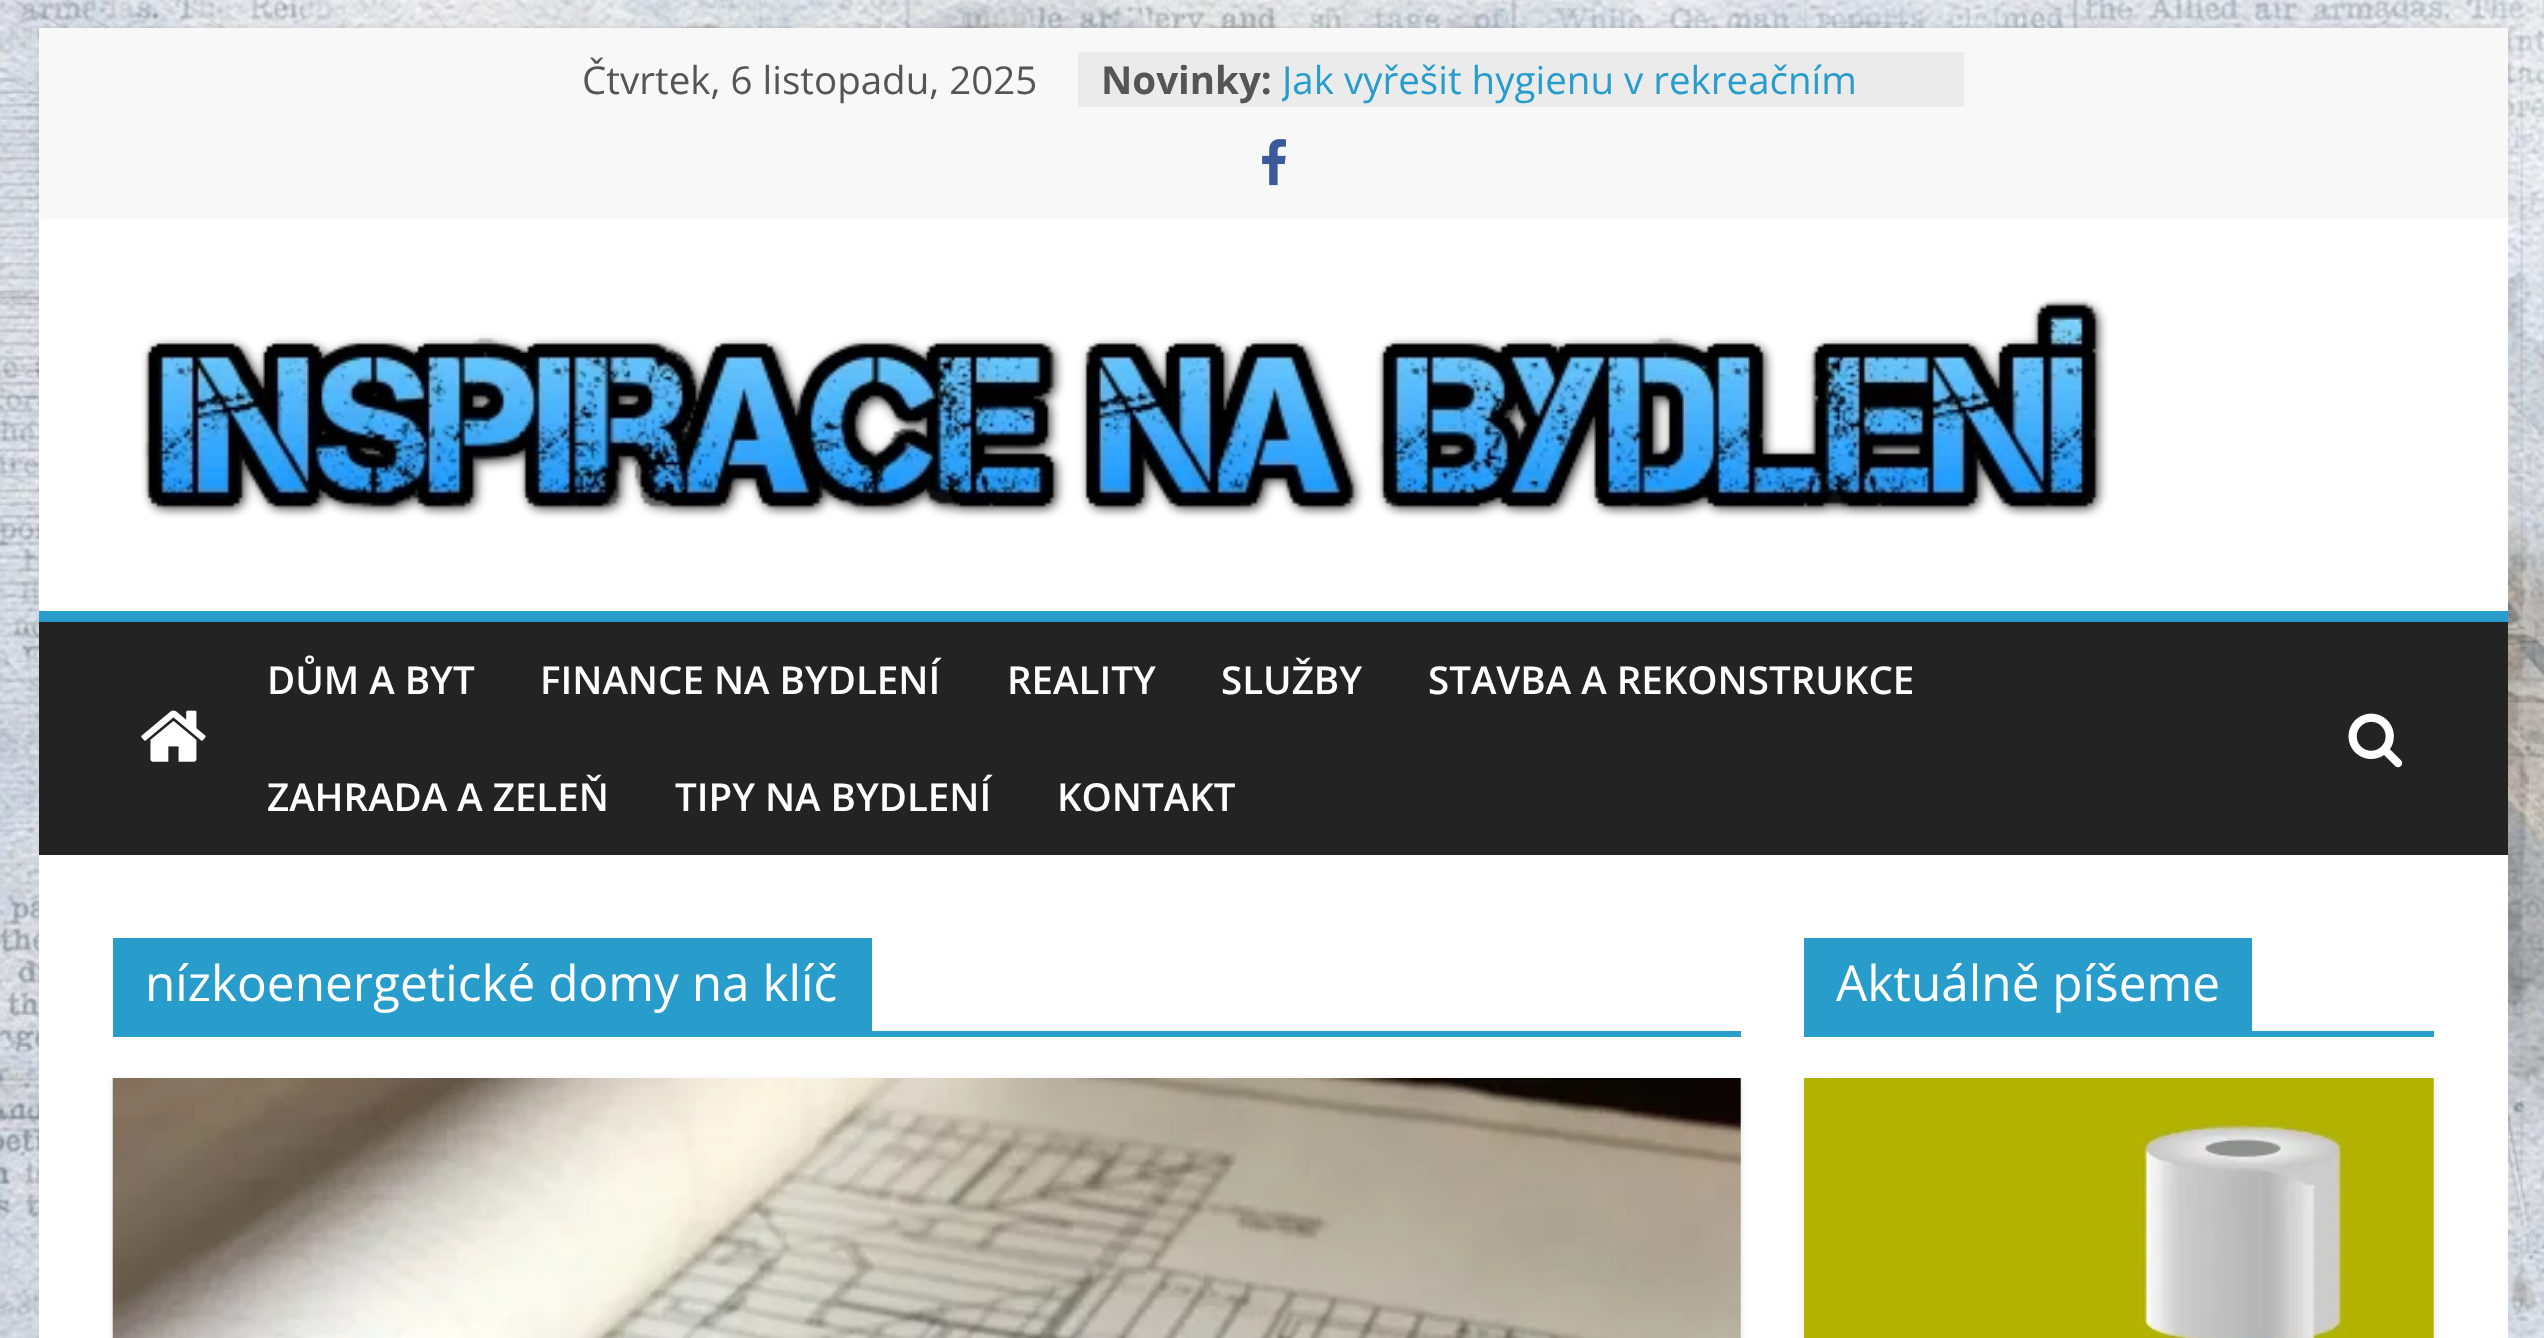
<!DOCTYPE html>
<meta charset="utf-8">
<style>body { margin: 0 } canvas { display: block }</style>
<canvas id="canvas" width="2544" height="1338"></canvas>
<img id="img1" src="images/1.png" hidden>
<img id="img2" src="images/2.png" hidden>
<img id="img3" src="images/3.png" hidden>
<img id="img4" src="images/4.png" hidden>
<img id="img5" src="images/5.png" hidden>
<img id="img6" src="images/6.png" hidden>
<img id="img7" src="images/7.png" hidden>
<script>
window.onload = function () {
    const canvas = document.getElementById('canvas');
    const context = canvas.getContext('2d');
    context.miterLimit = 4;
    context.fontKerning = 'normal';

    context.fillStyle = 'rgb(255, 255, 255)';
    context.fillRect(0, 0, 2544, 1338);
    context.drawImage(document.getElementById('img1'), 0, 0, 2544, 1338);
    context.fillRect(39, 215, 2469, 396);
    context.fillStyle = 'rgba(0, 0, 0, 0.1)';
    context.filter = 'blur(3px)';
    context.beginPath();
    context.rect(39, 28, 2469, 187);
    context.fill();
    context.filter = 'none';
    context.fillStyle = 'rgb(248, 248, 248)';
    context.fillRect(39, 28, 2469, 187);
    context.fillStyle = 'rgb(235, 235, 236)';
    context.fillRect(1078, 52, 886, 55);
    context.drawImage(document.getElementById('img2'), 1262, 139, 24, 47);
    context.drawImage(document.getElementById('img3'), 141, 298, 1967, 220);
    context.fillStyle = 'rgb(35, 35, 35)';
    context.fillRect(39, 622, 2469, 233);
    context.fillStyle = 'rgb(40, 157, 204)';
    context.fillRect(39, 611, 2469, 11);
    context.drawImage(document.getElementById('img4'), 141, 710, 65, 52);
    context.drawImage(document.getElementById('img5'), 2348, 713, 55, 55);
    context.fillStyle = 'rgb(255, 255, 255)';
    context.fillRect(39, 855, 2469, 483);
    context.fillStyle = 'rgb(40, 157, 204)';
    context.fillRect(113, 1031, 1628, 6);
    context.fillRect(113, 938, 759, 93);
    context.fillStyle = 'rgba(0, 0, 0, 0.1)';
    context.filter = 'blur(4px)';
    context.beginPath();
    context.rect(113, 1081, 1628, 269);
    context.fill();
    context.filter = 'none';
    context.drawImage(document.getElementById('img6'), 112, 1078, 1629, 260);
    context.fillStyle = 'rgb(40, 157, 204)';
    context.fillRect(1804, 1031, 630, 6);
    context.fillRect(1804, 938, 448, 93);
    context.fillStyle = 'rgba(0, 0, 0, 0.1)';
    context.filter = 'blur(4px)';
    context.beginPath();
    context.rect(1804, 1081, 630, 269);
    context.fill();
    context.filter = 'none';
    context.drawImage(document.getElementById('img7'), 1804, 1078, 630, 260);
    context.font = '38.5px Open Sans';
    context.fillStyle = 'rgb(85, 85, 85)';
    context.fillText('Čtvrtek, 6 listopadu, 2025', 582, 94);
    context.font = 'bold 38.5px Open Sans';
    context.fillText('Novinky:', 1101, 94);
    context.save();
    context.beginPath();
    context.rect(1282, 52, 660, 55);
    context.clip();
    context.font = '38.5px Open Sans';
    context.fillStyle = 'rgb(40, 157, 204)';
    context.fillText('Jak vyřešit hygienu v rekreačním', 1282, 94);
    context.restore();
    context.font = '600 38.5px Open Sans';
    context.fillStyle = 'rgb(255, 255, 255)';
    context.fillText('DŮM A BYT', 267, 694);
    context.fillText('FINANCE NA BYDLENÍ', 540, 694);
    context.fillText('REALITY', 1007, 694);
    context.fillText('SLUŽBY', 1221, 694);
    context.fillText('STAVBA A REKONSTRUKCE', 1428, 694);
    context.fillText('ZAHRADA A ZELEŇ', 267, 811);
    context.fillText('TIPY NA BYDLENÍ', 675, 811);
    context.fillText('KONTAKT', 1057, 811);
    context.font = '49.5px Open Sans';
    context.fillText('nízkoenergetické domy na klíč', 145, 1001);
    context.fillText('Aktuálně píšeme', 1836, 1001);
};
</script>
